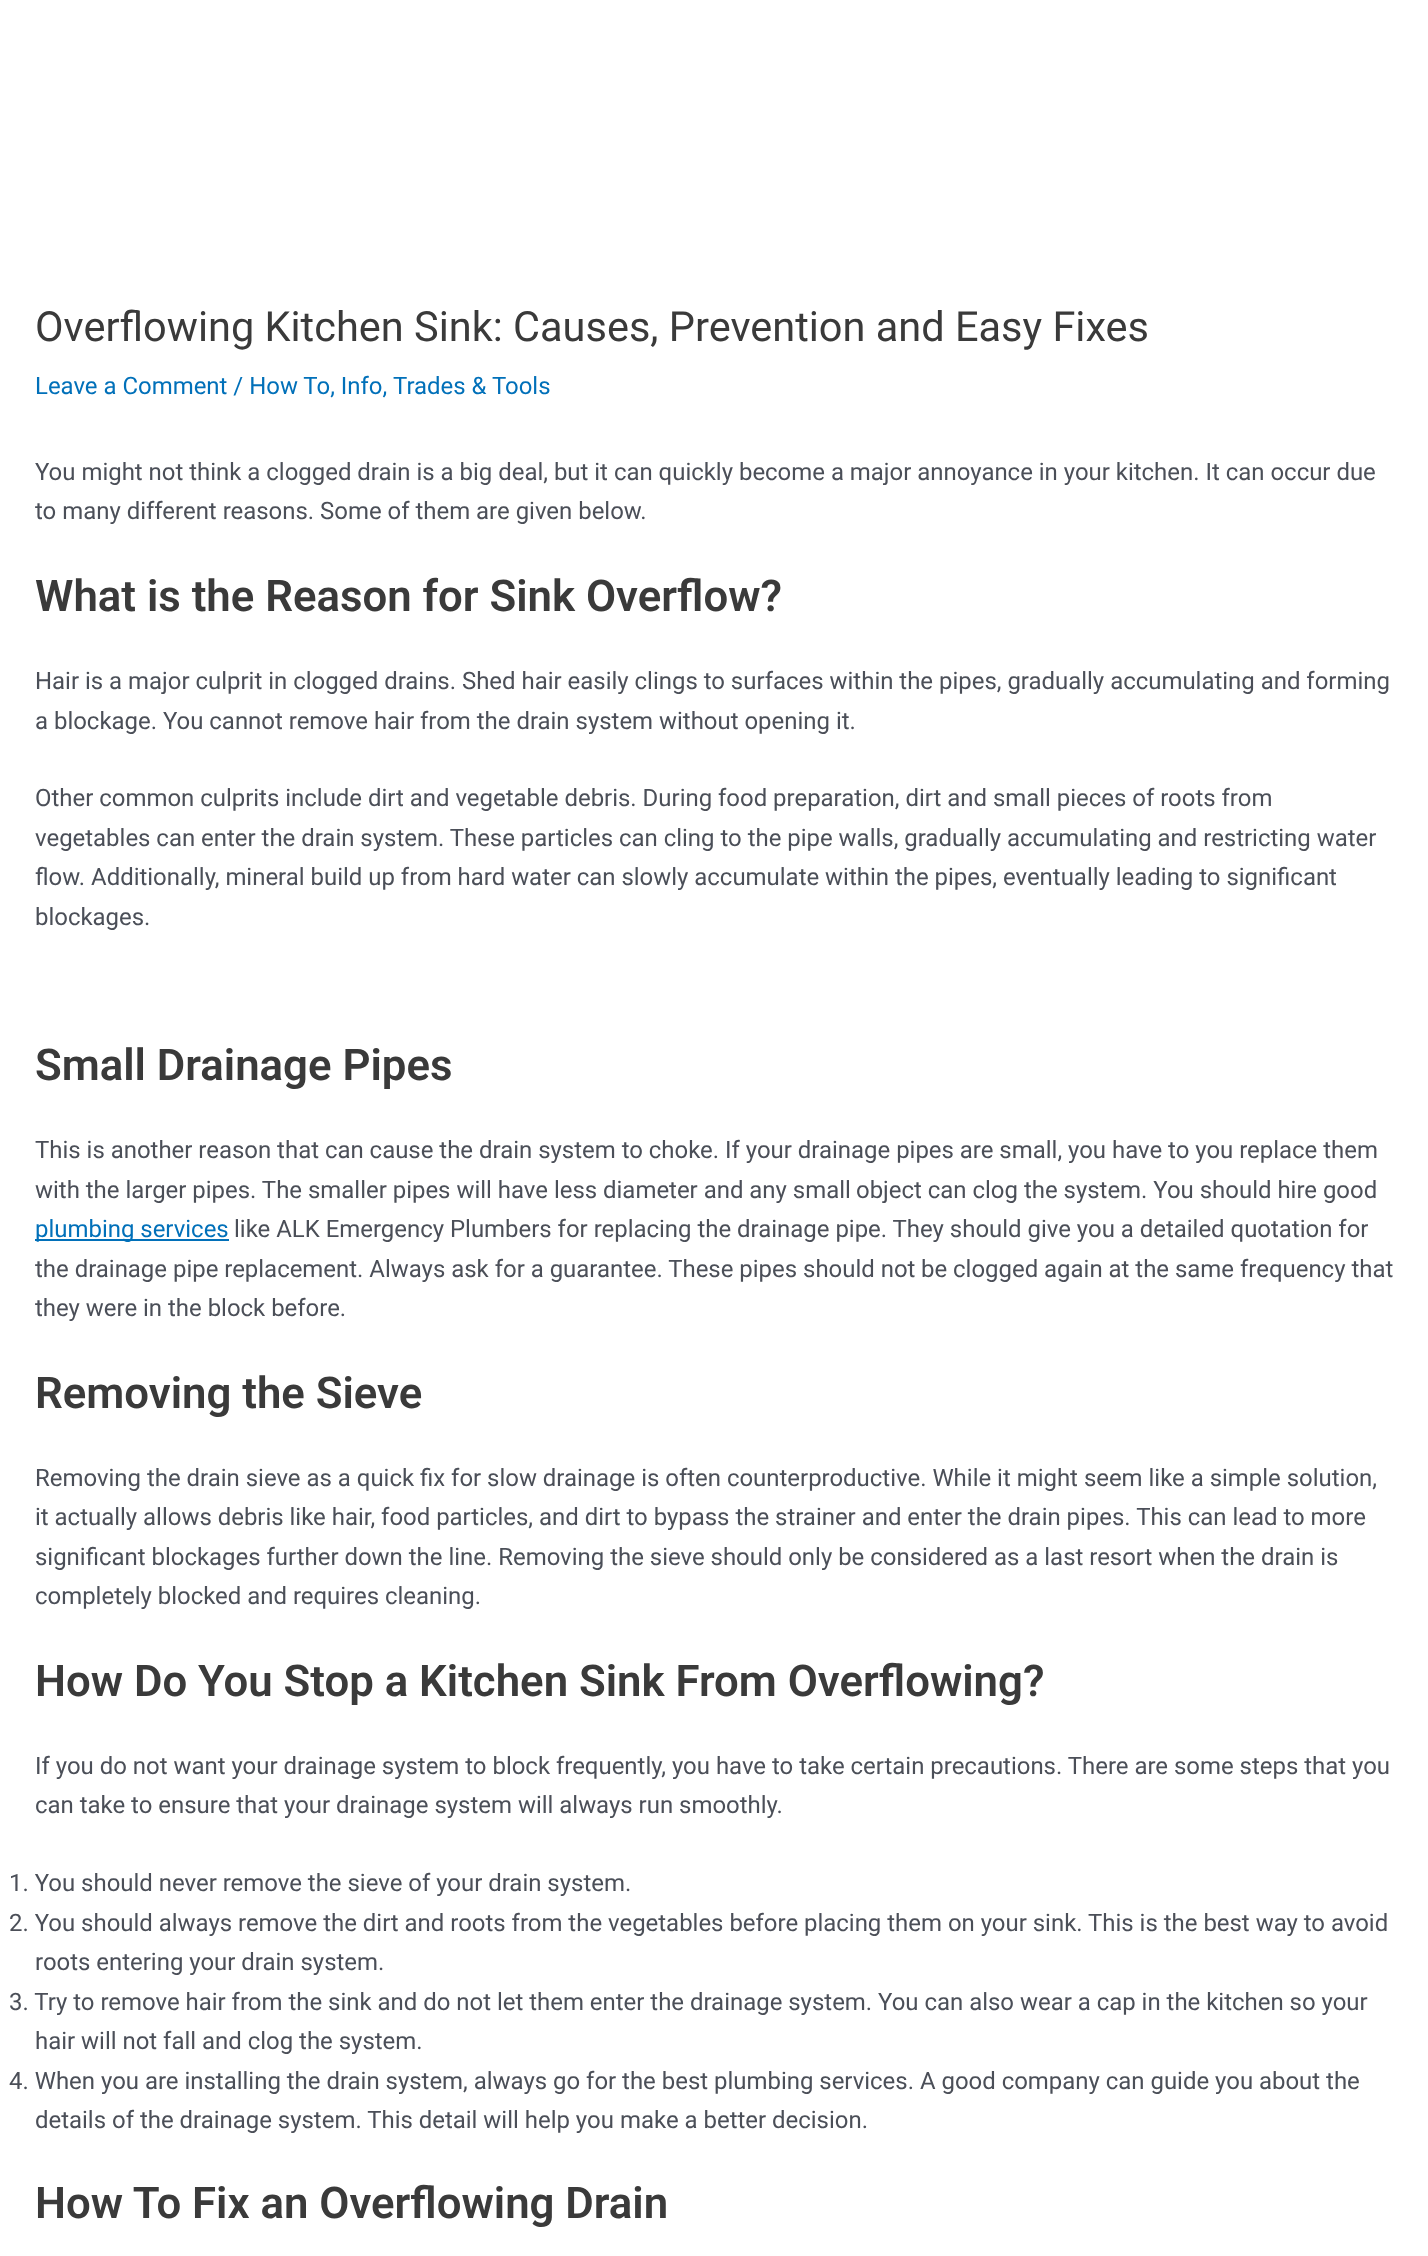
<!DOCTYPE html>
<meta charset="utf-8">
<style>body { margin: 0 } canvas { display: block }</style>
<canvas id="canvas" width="1428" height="2256"></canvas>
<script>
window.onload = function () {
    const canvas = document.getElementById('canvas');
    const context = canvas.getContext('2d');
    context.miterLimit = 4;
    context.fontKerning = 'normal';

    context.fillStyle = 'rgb(255, 255, 255)';
    context.fillRect(0, 0, 1428, 2256);
    context.fillStyle = 'rgb(1, 112, 185)';
    context.fillRect(35, 1239, 194, 2);
    context.font = '41.5px Roboto';
    context.fillStyle = 'rgb(58, 58, 58)';
    context.fillText('Overflowing Kitchen Sink: Causes, Prevention and Easy Fixes', 35, 341);
    context.font = '23.95px Roboto';
    context.fillStyle = 'rgb(1, 112, 185)';
    context.fillText('Leave a Comment / How To, Info,', 35, 394);
    context.fillText('Trades & Tools', 393, 394);
    context.fillStyle = 'rgb(75, 79, 88)';
    context.fillText('You might not think a clogged drain is a big deal, but it can quickly become a major annoyance in your kitchen. It can occur due', 35, 480);
    context.fillText('to many different reasons. Some of them are given below.', 35, 519);
    context.font = '600 43.75px Roboto';
    context.fillStyle = 'rgb(58, 58, 58)';
    context.fillText('What is the Reason for Sink Overflow?', 35, 611);
    context.font = '23.95px Roboto';
    context.fillStyle = 'rgb(75, 79, 88)';
    context.fillText('Hair is a major culprit in clogged drains. Shed hair easily clings to surfaces within the pipes, gradually accumulating and forming', 35, 689);
    context.fillText('a blockage. You cannot remove hair from the drain system without opening it.', 35, 729);
    context.fillText('Other common culprits include dirt and vegetable debris. During food preparation, dirt and small pieces of roots from', 35, 806);
    context.fillText('vegetables can enter the drain system. These particles can cling to the pipe walls, gradually accumulating and restricting water', 35, 846);
    context.fillText('flow. Additionally, mineral build up from hard water can slowly accumulate within the pipes, eventually leading to significant', 35, 885);
    context.fillText('blockages.', 35, 925);
    context.font = '600 43.75px Roboto';
    context.fillStyle = 'rgb(58, 58, 58)';
    context.fillText('Small Drainage Pipes', 35, 1080);
    context.font = '23.95px Roboto';
    context.fillStyle = 'rgb(75, 79, 88)';
    context.fillText('This is another reason that can cause the drain system to choke. If your drainage pipes are small, you have to you replace them', 35, 1158);
    context.fillText('with the larger pipes. The smaller pipes will have less diameter and any small', 35, 1198);
    context.fillText('object can clog the system. You should hire good', 856, 1198);
    context.fillStyle = 'rgb(1, 112, 185)';
    context.fillText('plumbing services', 35, 1237);
    context.fillStyle = 'rgb(75, 79, 88)';
    context.fillText('like ALK Emergency Plumbers for replacing the drainage pipe. They should give you a detailed quotation for', 234, 1237);
    context.fillText('the drainage pipe replacement. Always ask for a guarantee. These pipes should not', 35, 1277);
    context.fillText('be clogged again at the same frequency that', 921, 1277);
    context.fillText('they were in the block before.', 35, 1316);
    context.font = '600 43.75px Roboto';
    context.fillStyle = 'rgb(58, 58, 58)';
    context.fillText('Removing the Sieve', 35, 1408);
    context.font = '23.95px Roboto';
    context.fillStyle = 'rgb(75, 79, 88)';
    context.fillText('Removing the drain sieve as a quick fix for slow drainage is often counterproductive. While it might seem like a simple solution,', 35, 1486);
    context.fillText('it actually allows debris like hair, food particles, and dirt to bypass the strainer and enter the drain pipes. This can lead to more', 35, 1525);
    context.fillText('significant blockages further down the line. Removing the sieve should only be considered as a last resort when the drain is', 35, 1565);
    context.fillText('completely blocked and requires cleaning.', 35, 1604);
    context.font = '600 43.75px Roboto';
    context.fillStyle = 'rgb(58, 58, 58)';
    context.fillText('How Do You Stop a Kitchen Sink From Overflowing?', 35, 1696);
    context.font = '23.95px Roboto';
    context.fillStyle = 'rgb(75, 79, 88)';
    context.fillText('If you do not want your drainage system to block frequently, you have to take certain precautions. There are some steps that you', 35, 1774);
    context.fillText('can take to ensure that your drainage system will always run smoothly.', 35, 1813);
    context.fillText('1. You should never remove the sieve of your drain system.', 9, 1891);
    context.fillText('2. You should always remove the dirt and roots from the vegetables before placing them on your sink. This is the best way to avoid', 9, 1931);
    context.fillText('roots entering your drain system.', 35, 1970);
    context.fillText('3. Try to remove hair from the sink and do not let them enter the drainage system. You can also wear a cap in the kitchen so your', 9, 2010);
    context.fillText('hair will not fall and clog the system.', 35, 2049);
    context.fillText('4. When you are installing the drain system, always go for the best plumbing services. A good company can guide you about the', 9, 2089);
    context.fillText('details of the drainage system. This detail will help you', 35, 2128);
    context.fillText('make a better decision.', 620, 2128);
    context.font = '600 43.75px Roboto';
    context.fillStyle = 'rgb(58, 58, 58)';
    context.fillText('How To Fix an Overflowing Drain', 35, 2218);
};
</script>
